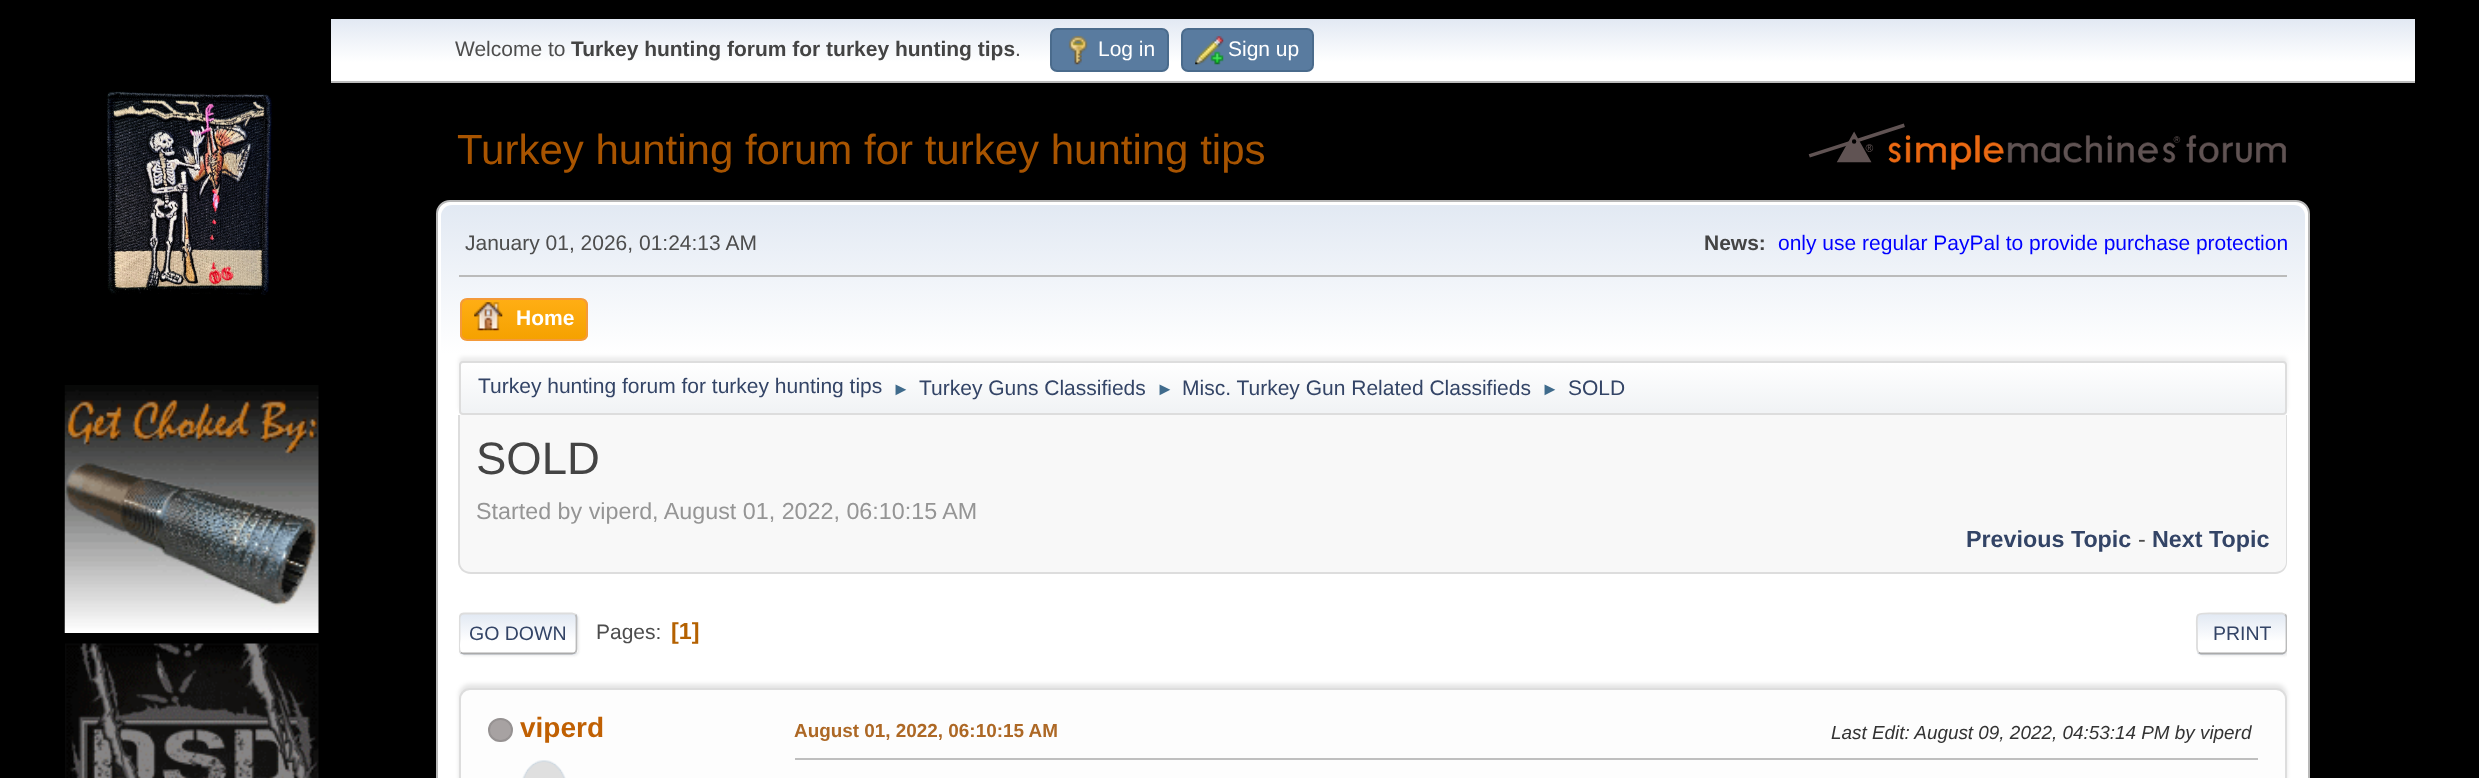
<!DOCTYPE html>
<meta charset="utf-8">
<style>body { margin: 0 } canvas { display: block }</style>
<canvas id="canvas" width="2479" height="778"></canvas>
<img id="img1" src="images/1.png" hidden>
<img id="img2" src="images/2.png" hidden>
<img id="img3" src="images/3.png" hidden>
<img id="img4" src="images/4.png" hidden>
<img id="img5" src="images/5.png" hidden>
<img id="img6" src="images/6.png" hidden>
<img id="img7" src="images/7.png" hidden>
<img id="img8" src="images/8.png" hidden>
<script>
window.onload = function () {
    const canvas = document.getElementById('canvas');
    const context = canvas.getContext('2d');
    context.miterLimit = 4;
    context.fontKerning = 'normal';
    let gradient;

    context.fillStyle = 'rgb(0, 0, 0)';
    context.fillRect(0, 0, 2479, 778);
    context.drawImage(document.getElementById('img1'), 106, 91, 166, 204);
    context.drawImage(document.getElementById('img2'), 64, 385, 255, 248);
    context.drawImage(document.getElementById('img3'), 65, 643, 254, 135);
    gradient = context.createLinearGradient(1373, 19, 1373, 81);
    gradient.addColorStop(0, 'rgb(226, 233, 243)');
    gradient.addColorStop(0.7, 'rgb(255, 255, 255)');
    context.fillStyle = gradient;
    context.fillRect(331, 19, 2084, 62);
    context.fillStyle = 'rgb(187, 187, 187)';
    context.fillRect(331, 81, 2084, 2);
    context.fillStyle = 'rgb(89, 123, 159)';
    context.beginPath();
    context.roundRect(1051, 29, 117, 42, 6);
    context.fill();
    context.strokeStyle = 'rgb(74, 107, 140)';
    context.lineWidth = 2;
    context.stroke();
    context.drawImage(document.getElementById('img4'), 1068, 36, 20, 29);
    context.beginPath();
    context.roundRect(1182, 29, 131, 42, 6);
    context.fill();
    context.stroke();
    context.drawImage(document.getElementById('img5'), 1195, 36, 29, 29);
    context.drawImage(document.getElementById('img6'), 1808, 123, 478, 47);
    context.fillStyle = 'rgb(255, 255, 255)';
    context.beginPath();
    context.roundRect(437, 201, 1872, 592, 13);
    context.fill();
    context.strokeStyle = 'rgb(184, 184, 184)';
    context.stroke();
    gradient = context.createLinearGradient(1373, 205, 1373, 418);
    gradient.addColorStop(0, 'rgb(226, 233, 243)');
    gradient.addColorStop(0.7, 'rgb(255, 255, 255)');
    context.fillStyle = gradient;
    context.beginPath();
    context.roundRect(441, 205, 1864, 213, [11, 11, 0, 0]);
    context.fill();
    context.fillStyle = 'rgb(187, 187, 187)';
    context.fillRect(459, 275, 1828, 2);
    context.save();
    context.beginPath();
    context.roundRect(460, 298, 128, 43, 7);
    context.clip();
    gradient = context.createLinearGradient(524, 299, 524, 340);
    gradient.addColorStop(0, 'rgb(255, 174, 20)');
    gradient.addColorStop(1, 'rgb(245, 161, 0)');
    context.fillStyle = gradient;
    context.fillRect(460, 299, 128, 41);
    context.restore();
    context.beginPath();
    context.roundRect(461, 299, 126, 41, 6);
    context.strokeStyle = 'rgb(244, 154, 58)';
    context.stroke();
    context.drawImage(document.getElementById('img7'), 474, 302, 29, 29);
    context.fillStyle = 'rgba(0, 0, 0, 0.08)';
    context.filter = 'blur(2px)';
    context.beginPath();
    context.roundRect(459, 357, 1828, 54, 4);
    context.fill();
    context.filter = 'none';
    context.save();
    context.beginPath();
    context.roundRect(459, 361, 1828, 54, 4);
    context.clip();
    gradient = context.createLinearGradient(1373, 362, 1373, 413);
    gradient.addColorStop(0, 'rgb(255, 255, 255)');
    gradient.addColorStop(0.95, 'rgb(241, 243, 245)');
    context.fillStyle = gradient;
    context.fillRect(459, 362, 1828, 51);
    context.restore();
    context.beginPath();
    context.roundRect(460, 362, 1826, 52, 3);
    context.strokeStyle = 'rgb(221, 221, 221)';
    context.stroke();
    context.fillStyle = 'rgb(248, 248, 248)';
    context.beginPath();
    context.roundRect(459, 415, 1828, 159, [0, 0, 12, 12]);
    context.fill();
    context.fillStyle = 'rgb(221, 221, 221)';
    context.beginPath();
    context.moveTo(458, 415);
    context.lineTo(2287, 415);
    context.lineTo(2287, 562);
    context.bezierCurveTo(2287, 569, 2282, 574, 2275, 574);
    context.lineTo(471, 574);
    context.bezierCurveTo(464, 574, 458, 569, 458, 562);
    context.closePath();
    context.moveTo(460, 415);
    context.lineTo(2286, 415);
    context.lineTo(2286, 562);
    context.bezierCurveTo(2286, 568, 2281, 572, 2275, 572);
    context.lineTo(471, 572);
    context.bezierCurveTo(465, 572, 460, 568, 460, 562);
    context.closePath();
    context.fill('evenodd');
    context.fillStyle = 'rgba(221, 221, 221, 0.57)';
    context.filter = 'blur(1px)';
    context.beginPath();
    context.roundRect(460, 614, 119, 42, 5);
    context.fill();
    context.filter = 'none';
    context.save();
    context.beginPath();
    context.roundRect(459, 613, 119, 42, 5);
    context.clip();
    gradient = context.createLinearGradient(518, 614, 518, 653);
    gradient.addColorStop(0, 'rgb(226, 233, 243)');
    gradient.addColorStop(0.7, 'rgb(255, 255, 255)');
    context.fillStyle = gradient;
    context.fillRect(459, 614, 119, 39);
    gradient = context.createLinearGradient(518, 653, 518, 691);
    gradient.addColorStop(0, 'rgb(226, 233, 243)');
    gradient.addColorStop(0.7, 'rgb(255, 255, 255)');
    context.fillStyle = gradient;
    context.fillRect(459, 653, 119, 2);
    context.restore();
    context.beginPath();
    context.moveTo(575.5, 614.5);
    context.bezierCurveTo(576, 615.5, 576.5, 616.5, 576.5, 618);
    context.lineTo(576.5, 649);
    context.bezierCurveTo(576.5, 650.5, 576, 651.5, 575.5, 652.5);
    context.strokeStyle = 'rgb(187, 187, 187)';
    context.lineWidth = 1.8;
    context.stroke();
    context.beginPath();
    context.moveTo(575.5, 652.5);
    context.bezierCurveTo(574.5, 653, 573.5, 653.5, 572, 653.5);
    context.lineTo(464, 653.5);
    context.bezierCurveTo(462.5, 653.5, 461.5, 653, 460.5, 652.5);
    context.strokeStyle = 'rgb(170, 170, 170)';
    context.stroke();
    context.save();
    context.beginPath();
    context.rect(459, 600, 1828, 67);
    context.clip();
    context.beginPath();
    context.moveTo(460.5, 652.5);
    context.bezierCurveTo(458, 649.5, 459.5, 642, 459.5, 639);
    context.lineTo(459.5, 623);
    context.bezierCurveTo(459.5, 619.5, 458.5, 613.5, 464, 613.5);
    context.lineTo(572, 613.5);
    context.lineTo(575.5, 614.5);
    context.strokeStyle = 'rgb(221, 221, 221)';
    context.stroke();
    context.restore();
    context.save();
    context.beginPath();
    context.rect(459, 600, 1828, 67);
    context.clip();
    context.filter = 'blur(1px)';
    context.beginPath();
    context.roundRect(2198, 614, 91, 42, 5);
    context.fill();
    context.filter = 'none';
    context.restore();
    context.save();
    context.beginPath();
    context.roundRect(2196, 613, 91, 42, 5);
    context.clip();
    gradient = context.createLinearGradient(2242, 614, 2242, 653);
    gradient.addColorStop(0, 'rgb(226, 233, 243)');
    gradient.addColorStop(0.7, 'rgb(255, 255, 255)');
    context.fillStyle = gradient;
    context.fillRect(2196, 614, 91, 39);
    gradient = context.createLinearGradient(2242, 653, 2242, 691);
    gradient.addColorStop(0, 'rgb(226, 233, 243)');
    gradient.addColorStop(0.7, 'rgb(255, 255, 255)');
    context.fillStyle = gradient;
    context.fillRect(2196, 653, 91, 2);
    context.restore();
    context.save();
    context.beginPath();
    context.rect(459, 600, 1828, 67);
    context.clip();
    context.beginPath();
    context.moveTo(2285, 614.5);
    context.bezierCurveTo(2286, 615.5, 2286.5, 616.5, 2286.5, 618);
    context.lineTo(2286.5, 649);
    context.bezierCurveTo(2286.5, 650.5, 2286, 651.5, 2285, 652.5);
    context.strokeStyle = 'rgb(187, 187, 187)';
    context.stroke();
    context.restore();
    context.beginPath();
    context.moveTo(2285, 652.5);
    context.lineTo(2282.5, 653.5);
    context.lineTo(2201, 653.5);
    context.lineTo(2198.5, 652.5);
    context.stroke();
    context.beginPath();
    context.moveTo(2198.5, 652.5);
    context.bezierCurveTo(2196.5, 650.5, 2197, 646.5, 2197, 644);
    context.lineTo(2197, 633.5);
    context.bezierCurveTo(2197, 611.5, 2193, 613.5, 2215, 613.5);
    context.lineTo(2282, 613.5);
    context.lineTo(2285, 614.5);
    context.strokeStyle = 'rgb(221, 221, 221)';
    context.stroke();
    context.fillStyle = 'rgba(0, 0, 0, 0.1)';
    context.filter = 'blur(2px)';
    context.beginPath();
    context.roundRect(459, 684, 1828, 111, 11);
    context.fill();
    context.filter = 'none';
    context.fillStyle = 'rgb(253, 253, 253)';
    context.beginPath();
    context.roundRect(460, 689, 1826, 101, 10);
    context.fill();
    context.lineWidth = 2;
    context.stroke();
    context.fillStyle = 'rgb(167, 162, 162)';
    context.beginPath();
    context.roundRect(489, 719, 23, 22, 11);
    context.fill();
    context.strokeStyle = 'rgb(150, 146, 146)';
    context.stroke();
    context.drawImage(document.getElementById('img8'), 522, 760, 44, 18);
    context.fillStyle = 'rgb(191, 191, 191)';
    context.fillRect(795, 758, 1463, 2);
    context.font = '21px Liberation Sans';
    context.fillStyle = 'rgb(77, 77, 77)';
    context.fillText('Welcome to', 455, 56);
    context.font = 'bold 21px Liberation Sans';
    context.fillStyle = 'rgb(68, 68, 68)';
    context.fillText('Turkey hunting forum for turkey hunting tips', 571, 56);
    context.font = '21px Liberation Sans';
    context.fillStyle = 'rgb(77, 77, 77)';
    context.fillText('.', 1015, 56);
    context.fillStyle = 'rgb(255, 255, 255)';
    context.fillText('Log in', 1098, 56);
    context.fillText('Sign up', 1228, 56);
    context.font = '42px Liberation Sans';
    context.fillStyle = 'rgb(168, 84, 0)';
    context.fillText('Turkey hunting forum for turkey hunting tips', 457, 164);
    context.font = '21px Liberation Sans';
    context.fillStyle = 'rgb(77, 77, 77)';
    context.fillText('January 01, 2026, 01:24:13 AM', 465, 250);
    context.font = 'bold 21px Liberation Sans';
    context.fillStyle = 'rgb(68, 68, 68)';
    context.fillText('News:', 1704, 250);
    context.font = '21px Liberation Sans';
    context.fillStyle = 'rgb(0, 0, 255)';
    context.fillText('only use regular PayPal to provide purchase protection', 1778, 250);
    context.font = 'bold 21px Liberation Sans';
    context.fillStyle = 'rgb(255, 255, 255)';
    context.fillText('Home', 516, 325);
    context.font = '21px Liberation Sans';
    context.fillStyle = 'rgb(51, 68, 102)';
    context.fillText('Turkey hunting forum for turkey hunting tips', 478, 393);
    context.font = '18px Liberation Sans';
    context.fillStyle = 'rgb(63, 107, 140)';
    context.fillText('►', 892, 395);
    context.font = '21px Liberation Sans';
    context.fillStyle = 'rgb(51, 68, 102)';
    context.fillText('Turkey Guns Classifieds', 919, 395);
    context.font = '18px Liberation Sans';
    context.fillStyle = 'rgb(63, 107, 140)';
    context.fillText('►', 1156, 395);
    context.font = '21px Liberation Sans';
    context.fillStyle = 'rgb(51, 68, 102)';
    context.fillText('Misc. Turkey Gun Related Classifieds', 1182, 395);
    context.font = '18px Liberation Sans';
    context.fillStyle = 'rgb(63, 107, 140)';
    context.fillText('►', 1541, 395);
    context.font = '21px Liberation Sans';
    context.fillStyle = 'rgb(51, 68, 102)';
    context.fillText('SOLD', 1568, 395);
    context.font = '45.5px Liberation Sans';
    context.fillStyle = 'rgb(68, 68, 68)';
    context.fillText('SOLD', 476, 474);
    context.font = '23.3px Liberation Sans';
    context.fillStyle = 'rgb(149, 149, 149)';
    context.fillText('Started by viperd, August 01, 2022, 06:10:15 AM', 476, 519);
    context.font = 'bold 23.3px Liberation Sans';
    context.fillStyle = 'rgb(51, 68, 102)';
    context.fillText('Previous Topic', 1966, 547);
    context.font = '23.3px Liberation Sans';
    context.fillStyle = 'rgb(77, 77, 77)';
    context.fillText('-', 2138, 547);
    context.font = 'bold 23.3px Liberation Sans';
    context.fillStyle = 'rgb(51, 68, 102)';
    context.fillText('Next Topic', 2152, 547);
    context.font = '19.5px Liberation Sans';
    context.fillText('GO DOWN', 469, 640);
    context.font = '21px Liberation Sans';
    context.fillStyle = 'rgb(77, 77, 77)';
    context.fillText('Pages:', 596, 639);
    context.font = 'bold 23.3px Liberation Sans';
    context.fillStyle = 'rgb(180, 97, 0)';
    context.fillText('[1]', 671, 639);
    context.font = '19.5px Liberation Sans';
    context.fillStyle = 'rgb(51, 68, 102)';
    context.fillText('PRINT', 2213, 640);
    context.font = 'bold 28px Liberation Sans';
    context.fillStyle = 'rgb(192, 96, 2)';
    context.fillText('viperd', 520, 737);
    context.font = 'bold 18.9px Liberation Sans';
    context.fillStyle = 'rgb(173, 104, 37)';
    context.fillText('August 01, 2022, 06:10:15 AM', 794, 737);
    context.font = 'italic 18.9px Liberation Sans';
    context.fillStyle = 'rgb(51, 51, 51)';
    context.fillText('Last Edit: August 09, 2022, 04:53:14 PM by viperd', 1831, 739);
};
</script>
